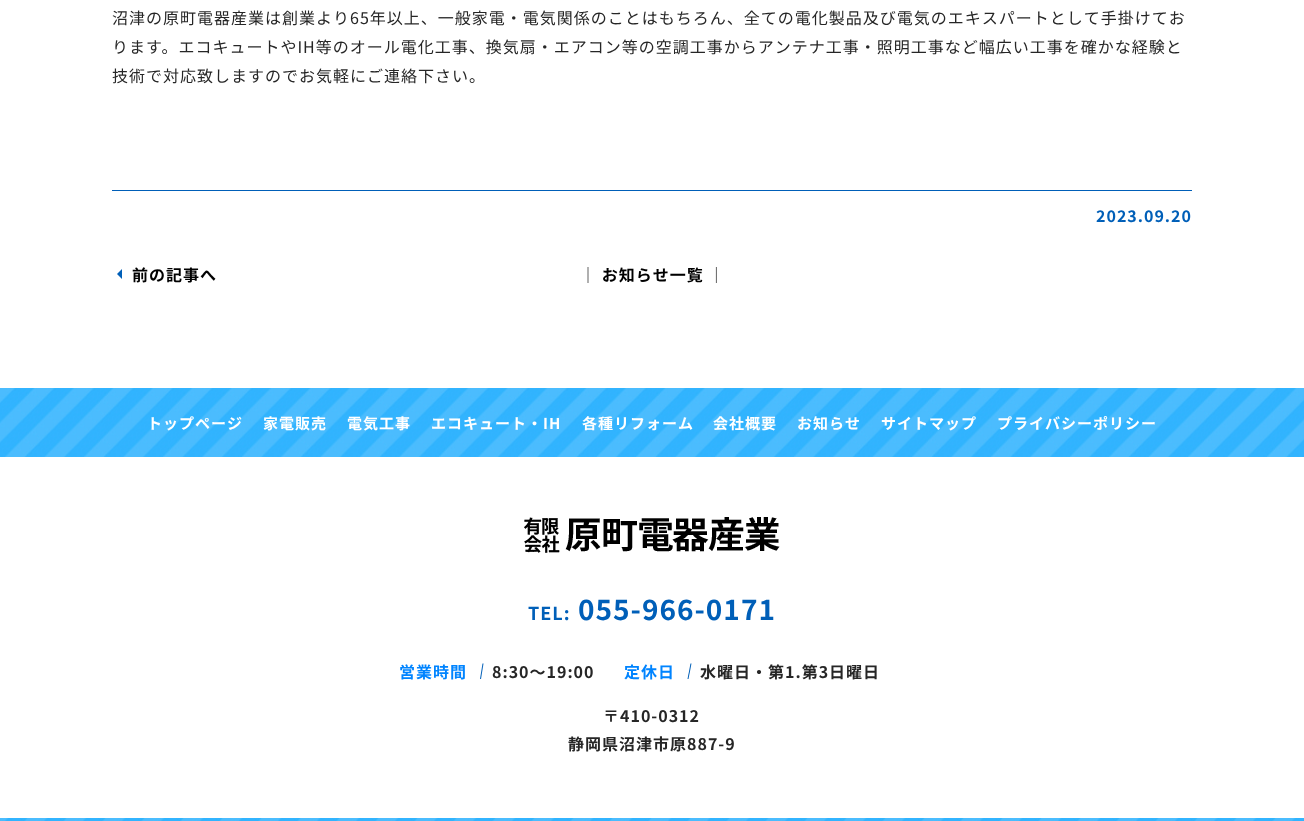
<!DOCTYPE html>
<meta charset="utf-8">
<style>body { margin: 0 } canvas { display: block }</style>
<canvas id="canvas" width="1304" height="821"></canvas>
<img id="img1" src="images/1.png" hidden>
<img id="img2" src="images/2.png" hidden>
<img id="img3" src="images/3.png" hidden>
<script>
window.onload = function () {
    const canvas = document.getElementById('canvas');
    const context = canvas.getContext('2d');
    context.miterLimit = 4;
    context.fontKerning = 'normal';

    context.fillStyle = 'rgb(255, 255, 255)';
    context.fillRect(0, 0, 1304, 821);
    context.fillStyle = 'rgb(0, 95, 184)';
    context.fillRect(112, 190, 1080, 1);
    context.beginPath();
    context.moveTo(122, 269);
    context.lineTo(122, 279);
    context.lineTo(117, 274);
    context.closePath();
    context.fill();
    context.drawImage(document.getElementById('img1'), 0, 388, 1304, 69);
    context.drawImage(document.getElementById('img2'), 524, 517, 256, 36);
    context.beginPath();
    context.moveTo(482.5, 663.5);
    context.lineTo(483.5, 663.5);
    context.lineTo(481, 679);
    context.lineTo(480, 679);
    context.closePath();
    context.fill();
    context.beginPath();
    context.moveTo(690.5, 663.5);
    context.lineTo(691.5, 663.5);
    context.lineTo(688.5, 679);
    context.lineTo(687.5, 679);
    context.closePath();
    context.fill();
    context.drawImage(document.getElementById('img3'), 0, 818, 1304, 3);
    context.letterSpacing = '1px';
    context.font = '16px Noto Sans JP';
    context.fillStyle = 'rgb(38, 38, 38)';
    context.fillText('沼津の原町電器産業は創業より65年以上、一般家電・電気関係のことはもちろん、全ての電化製品及び電気のエキスパートとして手掛けてお', 112, 24);
    context.fillText('ります。エコキュートやIH等のオール電化工事、換気扇・エアコン等の空調工事からアンテナ工事・照明工事など幅広い工事を確かな経験と', 112, 53);
    context.fillText('技術で対応致しますのでお気軽にご連絡下さい。', 112, 82);
    context.font = 'bold 16px Noto Sans JP';
    context.fillStyle = 'rgb(0, 95, 184)';
    context.fillText('2023.09.20', 1096, 222);
    context.fillStyle = 'rgb(0, 0, 0)';
    context.fillText('前の記事へ', 132, 281);
    context.fillText('│ お知らせ一覧 │', 580, 281);
    context.font = 'bold 15px Noto Sans JP';
    context.fillStyle = 'rgb(255, 255, 255)';
    context.fillText('トップページ', 147, 429);
    context.fillText('家電販売', 263, 429);
    context.fillText('電気工事', 347, 429);
    context.fillText('エコキュート・IH', 431, 429);
    context.fillText('各種リフォーム', 582, 429);
    context.fillText('会社概要', 713, 429);
    context.fillText('お知らせ', 797, 429);
    context.fillText('サイトマップ', 881, 429);
    context.fillText('プライバシーポリシー', 997, 429);
    context.font = 'bold 18px Noto Sans JP';
    context.fillStyle = 'rgb(0, 95, 184)';
    context.fillText('TEL:', 528, 620);
    context.font = 'bold 28px Noto Sans JP';
    context.fillText('055-966-0171', 578, 620);
    context.font = 'bold 16px Noto Sans JP';
    context.fillStyle = 'rgb(0, 132, 255)';
    context.fillText('営業時間', 399, 678);
    context.fillStyle = 'rgb(38, 38, 38)';
    context.fillText('8:30～19:00', 492, 678);
    context.fillStyle = 'rgb(0, 132, 255)';
    context.fillText('定休日', 624, 678);
    context.fillStyle = 'rgb(38, 38, 38)';
    context.fillText('水曜日・第1.第3日曜日', 700, 678);
    context.fillText('〒410-0312', 603, 722);
    context.fillText('静岡県沼津市原887-9', 568, 750);
};
</script>
